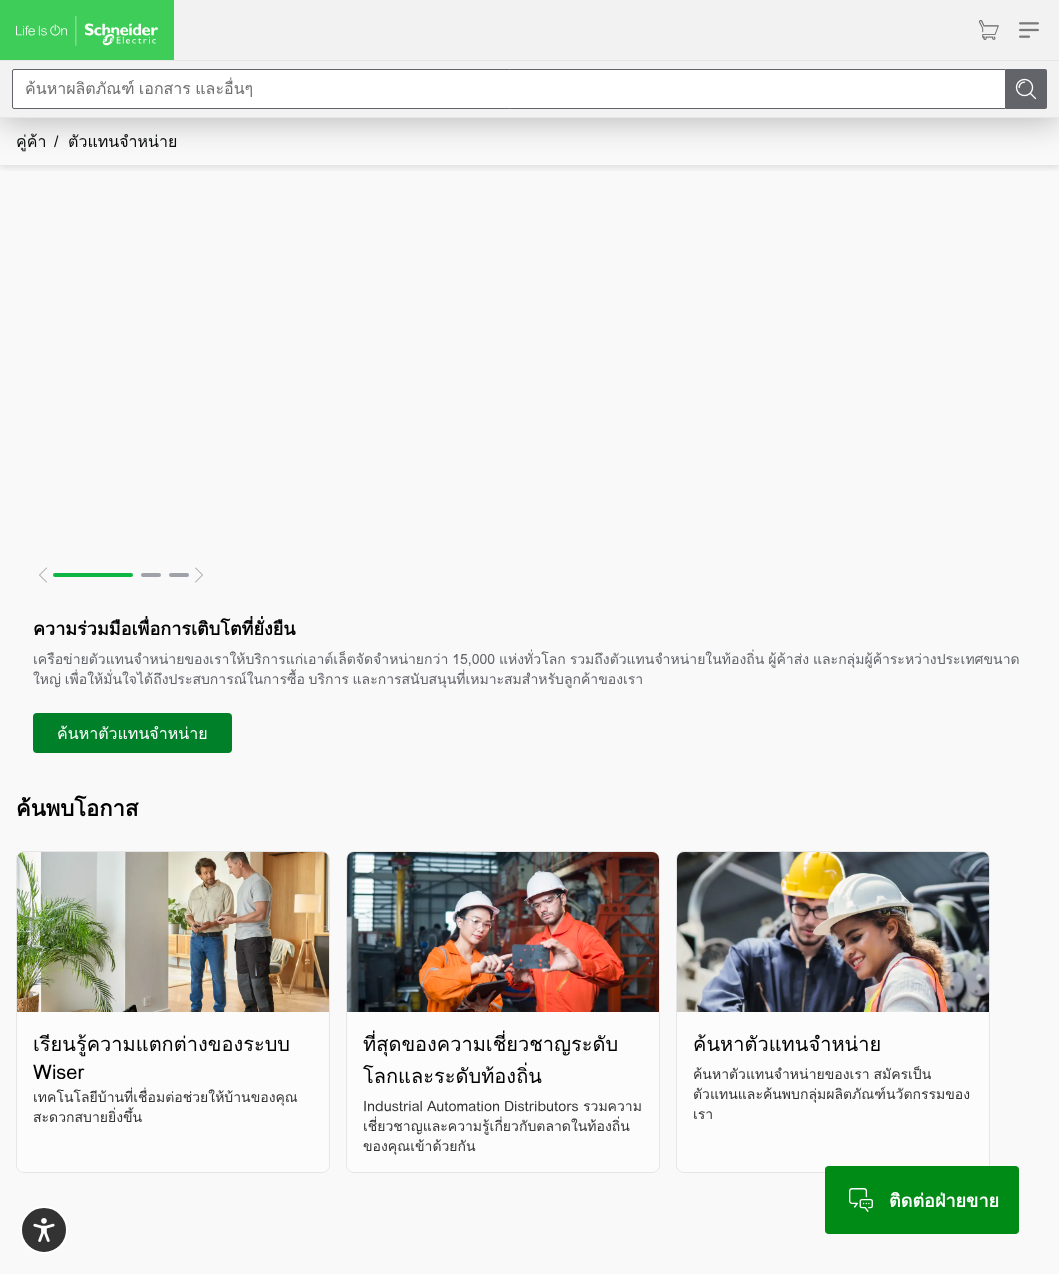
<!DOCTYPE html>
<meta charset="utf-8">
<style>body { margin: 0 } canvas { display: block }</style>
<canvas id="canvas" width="1059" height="1274"></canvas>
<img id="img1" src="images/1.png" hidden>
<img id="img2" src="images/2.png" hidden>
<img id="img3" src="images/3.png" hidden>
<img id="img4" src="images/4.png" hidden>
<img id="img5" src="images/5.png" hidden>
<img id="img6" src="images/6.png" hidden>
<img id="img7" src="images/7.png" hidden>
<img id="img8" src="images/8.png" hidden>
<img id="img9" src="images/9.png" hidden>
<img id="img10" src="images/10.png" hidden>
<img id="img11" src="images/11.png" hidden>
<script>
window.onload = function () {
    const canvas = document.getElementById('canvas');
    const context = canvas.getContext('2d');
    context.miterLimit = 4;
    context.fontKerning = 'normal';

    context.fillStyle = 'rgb(249, 249, 249)';
    context.fillRect(0, 0, 1059, 1274);
    context.fillStyle = 'rgba(0, 0, 0, 0.25)';
    context.filter = 'blur(16px)';
    context.beginPath();
    context.rect(0, 4, 1059, 118);
    context.fill();
    context.filter = 'none';
    context.save();
    context.beginPath();
    context.rect(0, 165, 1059, 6);
    context.clip();
    context.fillStyle = 'rgba(0, 0, 0, 0.1)';
    context.filter = 'blur(3px)';
    context.beginPath();
    context.rect(0, 121, 1059, 47);
    context.fill();
    context.filter = 'none';
    context.restore();
    context.fillStyle = 'rgb(243, 242, 242)';
    context.fillRect(0, 0, 1059, 117);
    context.fillStyle = 'rgb(231, 230, 230)';
    context.fillRect(0, 117, 1059, 1);
    context.fillStyle = 'rgb(61, 205, 88)';
    context.fillRect(0, 0, 174, 60);
    context.drawImage(document.getElementById('img1'), 16, 16, 142, 30);
    context.drawImage(document.getElementById('img2'), 979, 20, 20, 20);
    context.drawImage(document.getElementById('img3'), 1019, 22, 20, 16);
    context.fillStyle = 'rgb(231, 230, 230)';
    context.fillRect(0, 60, 1059, 1);
    context.fillStyle = 'rgb(255, 255, 255)';
    context.beginPath();
    context.roundRect(12.5, 69.5, 993, 39, [1.5, 0, 0, 1.5]);
    context.fill();
    context.strokeStyle = 'rgb(98, 100, 105)';
    context.stroke();
    context.fillStyle = 'rgb(98, 100, 105)';
    context.beginPath();
    context.roundRect(1006, 69, 41, 40, [0, 2, 2, 0]);
    context.fill();
    context.drawImage(document.getElementById('img4'), 1015, 78, 22, 22);
    context.drawImage(document.getElementById('img5'), 39, 567, 8, 16);
    context.fillStyle = 'rgb(15, 181, 66)';
    context.beginPath();
    context.roundRect(53, 573, 80, 4, 2);
    context.fill();
    context.fillStyle = 'rgb(159, 162, 169)';
    context.beginPath();
    context.roundRect(141, 573, 20, 4, 2);
    context.fill();
    context.beginPath();
    context.roundRect(169, 573, 20, 4, 2);
    context.fill();
    context.drawImage(document.getElementById('img6'), 195, 567, 8, 16);
    context.fillStyle = 'rgb(0, 128, 41)';
    context.beginPath();
    context.roundRect(33, 713, 199, 40, 4);
    context.fill();
    context.beginPath();
    context.roundRect(16.5, 851.5, 313, 321, 7.5);
    context.strokeStyle = 'rgb(230, 230, 230)';
    context.stroke();
    context.drawImage(document.getElementById('img7'), 17, 852, 312, 160);
    context.fillStyle = 'rgb(252, 252, 252)';
    context.beginPath();
    context.roundRect(17, 1012, 312, 160, [0, 0, 7, 7]);
    context.fill();
    context.beginPath();
    context.roundRect(346.5, 851.5, 313, 321, 7.5);
    context.stroke();
    context.drawImage(document.getElementById('img8'), 347, 852, 312, 160);
    context.beginPath();
    context.roundRect(347, 1012, 312, 160, [0, 0, 7, 7]);
    context.fill();
    context.beginPath();
    context.roundRect(676.5, 851.5, 313, 321, 7.5);
    context.stroke();
    context.drawImage(document.getElementById('img9'), 677, 852, 312, 160);
    context.beginPath();
    context.roundRect(677, 1012, 312, 160, [0, 0, 7, 7]);
    context.fill();
    context.fillStyle = 'rgb(0, 138, 22)';
    context.beginPath();
    context.roundRect(825, 1166, 194, 68, 4);
    context.fill();
    context.drawImage(document.getElementById('img10'), 849, 1188, 24, 24);
    context.fillStyle = 'rgb(51, 51, 51)';
    context.beginPath();
    context.arc(44, 1230, 23, 0, 2 * Math.PI);
    context.fill();
    context.strokeStyle = 'rgb(255, 255, 255)';
    context.lineWidth = 2;
    context.stroke();
    context.drawImage(document.getElementById('img11'), 33, 1218, 22, 24);
    context.save();
    context.beginPath();
    context.rect(25, 76, 944, 25);
    context.clip();
    context.wordSpacing = '-1px';
    context.font = '16px Loma';
    context.fillStyle = 'rgb(111, 111, 111)';
    context.fillText('ค้นหาผลิตภัณฑ์ เอกสาร และอื่นๆ', 25, 94);
    context.restore();
    context.save();
    context.beginPath();
    context.rect(16, 129, 30, 25);
    context.clip();
    context.font = '16px Loma';
    context.fillStyle = 'rgb(9, 11, 12)';
    context.fillText('คู่ค้า', 16, 147);
    context.restore();
    context.font = '16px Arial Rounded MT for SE';
    context.fillStyle = 'rgb(9, 11, 12)';
    context.fillText('/', 54, 147);
    context.save();
    context.beginPath();
    context.rect(68, 129, 109, 25);
    context.clip();
    context.font = '16px Loma';
    context.fillText('ตัวแทนจำหน่าย', 68, 147);
    context.restore();
    context.font = 'bold 18px Loma';
    context.fillStyle = 'rgb(0, 0, 0)';
    context.fillText('ความร่วมมือเพื่อการเติบโตที่ยั่งยืน', 33, 635);
    context.wordSpacing = '-0.75px';
    context.font = '14px Loma';
    context.fillStyle = 'rgb(98, 100, 105)';
    context.fillText('เครือข่ายตัวแทนจำหน่ายของเราให้บริการแก่เอาต์เล็ตจัดจำหน่ายกว่า 15,000 แห่งทั่วโลก รวมถึงตัวแทนจำหน่ายในท้องถิ่น ผู้ค้าส่ง และกลุ่มผู้ค้าระหว่างประเทศขนาด', 33, 664);
    context.wordSpacing = '-1px';
    context.fillText('ใหญ่ เพื่อให้มั่นใจได้ถึงประสบการณ์ในการซื้อ บริการ และการสนับสนุนที่เหมาะสมสำหรับลูกค้าของเรา', 33, 684);
    context.save();
    context.beginPath();
    context.rect(57, 721, 151, 25);
    context.clip();
    context.wordSpacing = '0px';
    context.font = '16px Loma';
    context.fillStyle = 'rgb(255, 255, 255)';
    context.fillText('ค้นหาตัวแทนจำหน่าย', 57, 739);
    context.restore();
    context.wordSpacing = '0px';
    context.font = 'bold 22px Loma';
    context.fillStyle = 'rgb(0, 0, 0)';
    context.fillText('ค้นพบโอกาส', 16, 816);
    context.font = '20px Loma';
    context.fillText('เรียนรู้ความแตกต่างของระบบ', 33, 1051);
    context.fillText('Wiser', 33, 1079);
    context.font = '14px Loma';
    context.fillStyle = 'rgb(51, 51, 51)';
    context.fillText('เทคโนโลยีบ้านที่เชื่อมต่อช่วยให้บ้านของคุณ', 33, 1102);
    context.fillText('สะดวกสบายยิ่งขึ้น', 33, 1122);
    context.font = '20px Loma';
    context.fillStyle = 'rgb(0, 0, 0)';
    context.fillText('ที่สุดของความเชี่ยวชาญระดับ', 363, 1051);
    context.fillText('โลกและระดับท้องถิ่น', 363, 1083);
    context.font = '14px Arial Rounded MT for SE';
    context.fillStyle = 'rgb(51, 51, 51)';
    context.fillText('Industrial Automation Distributors', 363, 1111);
    context.font = '14px Loma';
    context.fillText('รวมความ', 583, 1111);
    context.save();
    context.beginPath();
    context.rect(363, 1096, 280, 60);
    context.clip();
    context.fillText('เชี่ยวชาญและความรู้เกี่ยวกับตลาดในท้องถิ่น', 363, 1131);
    context.restore();
    context.fillText('ของคุณเข้าด้วยกัน', 363, 1151);
    context.font = '20px Loma';
    context.fillStyle = 'rgb(0, 0, 0)';
    context.fillText('ค้นหาตัวแทนจำหน่าย', 693, 1051);
    context.save();
    context.beginPath();
    context.rect(693, 1064, 280, 60);
    context.clip();
    context.wordSpacing = '-1px';
    context.font = '14px Loma';
    context.fillStyle = 'rgb(51, 51, 51)';
    context.fillText('ค้นหาตัวแทนจำหน่ายของเรา สมัครเป็น', 693, 1079);
    context.wordSpacing = '0px';
    context.fillText('ตัวแทนและค้นพบกลุ่มผลิตภัณฑ์นวัตกรรมของ', 693, 1099);
    context.restore();
    context.font = '14px Loma';
    context.fillStyle = 'rgb(51, 51, 51)';
    context.fillText('เรา', 693, 1119);
    context.font = 'bold 18px Loma';
    context.fillStyle = 'rgb(255, 255, 255)';
    context.fillText('ติดต่อฝ่ายขาย', 889, 1207);
};
</script>
